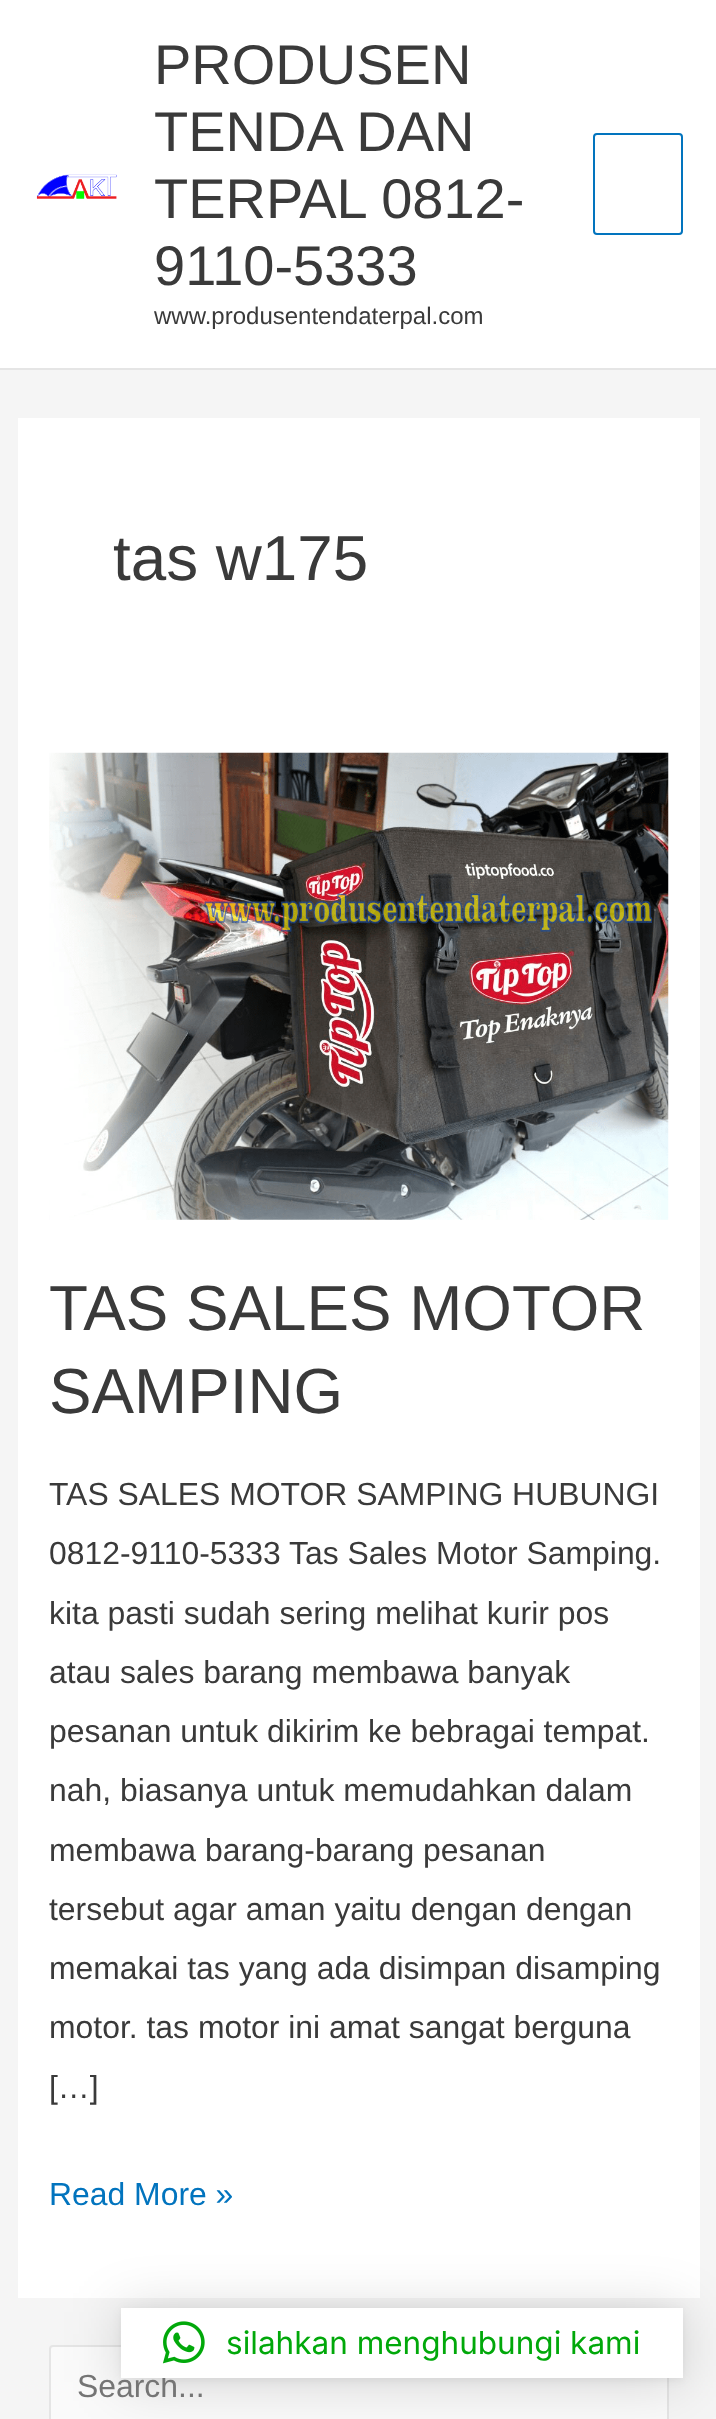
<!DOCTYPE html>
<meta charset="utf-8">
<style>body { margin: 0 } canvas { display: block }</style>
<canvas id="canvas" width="716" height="2419"></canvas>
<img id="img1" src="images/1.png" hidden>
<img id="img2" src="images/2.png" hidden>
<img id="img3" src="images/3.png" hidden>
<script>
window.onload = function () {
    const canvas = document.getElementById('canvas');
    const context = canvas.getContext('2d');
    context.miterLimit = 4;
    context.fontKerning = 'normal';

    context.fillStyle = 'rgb(245, 245, 245)';
    context.fillRect(0, 0, 716, 2419);
    context.fillStyle = 'rgb(255, 255, 255)';
    context.fillRect(0, 0, 716, 368);
    context.fillStyle = 'rgb(229, 229, 229)';
    context.fillRect(0, 368, 716, 2);
    context.drawImage(document.getElementById('img1'), 36, 174, 81, 25);
    context.beginPath();
    context.roundRect(594, 134, 88, 100, 3);
    context.strokeStyle = 'rgb(2, 116, 190)';
    context.lineWidth = 2;
    context.stroke();
    context.fillStyle = 'rgb(255, 255, 255)';
    context.fillRect(18, 418, 682, 1880);
    context.drawImage(document.getElementById('img2'), 49, 752, 620, 468);
    context.fillStyle = 'rgb(250, 250, 250)';
    context.beginPath();
    context.roundRect(50, 2346, 618, 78, 3);
    context.fill();
    context.strokeStyle = 'rgb(229, 229, 229)';
    context.stroke();
    context.fillStyle = 'rgba(0, 0, 0, 0.16)';
    context.filter = 'blur(28px)';
    context.beginPath();
    context.rect(121, 2312, 562, 70);
    context.fill();
    context.filter = 'none';
    context.fillStyle = 'rgba(0, 0, 0, 0.06)';
    context.filter = 'blur(5px)';
    context.beginPath();
    context.rect(121, 2310, 562, 70);
    context.fill();
    context.filter = 'none';
    context.font = '56px Liberation Sans';
    context.fillStyle = 'rgb(58, 58, 58)';
    context.fillText('PRODUSEN', 154, 84);
    context.fillText('TENDA DAN', 154, 151);
    context.fillText('TERPAL 0812-', 154, 218);
    context.fillText('9110-5333', 154, 285);
    context.font = '24px Liberation Sans';
    context.fillText('www.produsentendaterpal.com', 154, 324);
    context.font = '63.75px Liberation Sans';
    context.fillText('tas w175', 113, 580);
    context.fillText('TAS SALES MOTOR', 49, 1330);
    context.fillText('SAMPING', 49, 1413);
    context.font = '31.9px Liberation Sans';
    context.fillText('TAS SALES MOTOR SAMPING HUBUNGI', 49, 1505);
    context.fillText('0812-9110-5333 Tas Sales Motor Samping.', 49, 1564);
    context.fillText('kita pasti sudah sering melihat kurir pos', 49, 1624);
    context.fillText('atau sales barang membawa banyak', 49, 1683);
    context.fillText('pesanan untuk dikirim ke bebragai tempat.', 49, 1742);
    context.fillText('nah, biasanya untuk memudahkan dalam', 49, 1801);
    context.fillText('membawa barang-barang pesanan', 49, 1861);
    context.fillText('tersebut agar aman yaitu dengan dengan', 49, 1920);
    context.fillText('memakai tas yang ada disimpan disamping', 49, 1979);
    context.fillText('motor. tas motor ini amat sangat berguna', 49, 2038);
    context.fillText('[…]', 49, 2098);
    context.fillStyle = 'rgb(2, 116, 190)';
    context.fillText('Read More »', 49, 2205);
    context.fillStyle = 'rgb(117, 117, 117)';
    context.fillText('Search...', 77, 2397);
    context.fillStyle = 'rgb(255, 255, 255)';
    context.fillRect(121, 2308, 562, 70);
    context.drawImage(document.getElementById('img3'), 162, 2321, 43, 43);
    context.font = '31.5px Inter';
    context.fillStyle = 'rgb(1, 168, 10)';
    context.fillText('silahkan menghubungi kami', 226, 2354);
};
</script>
